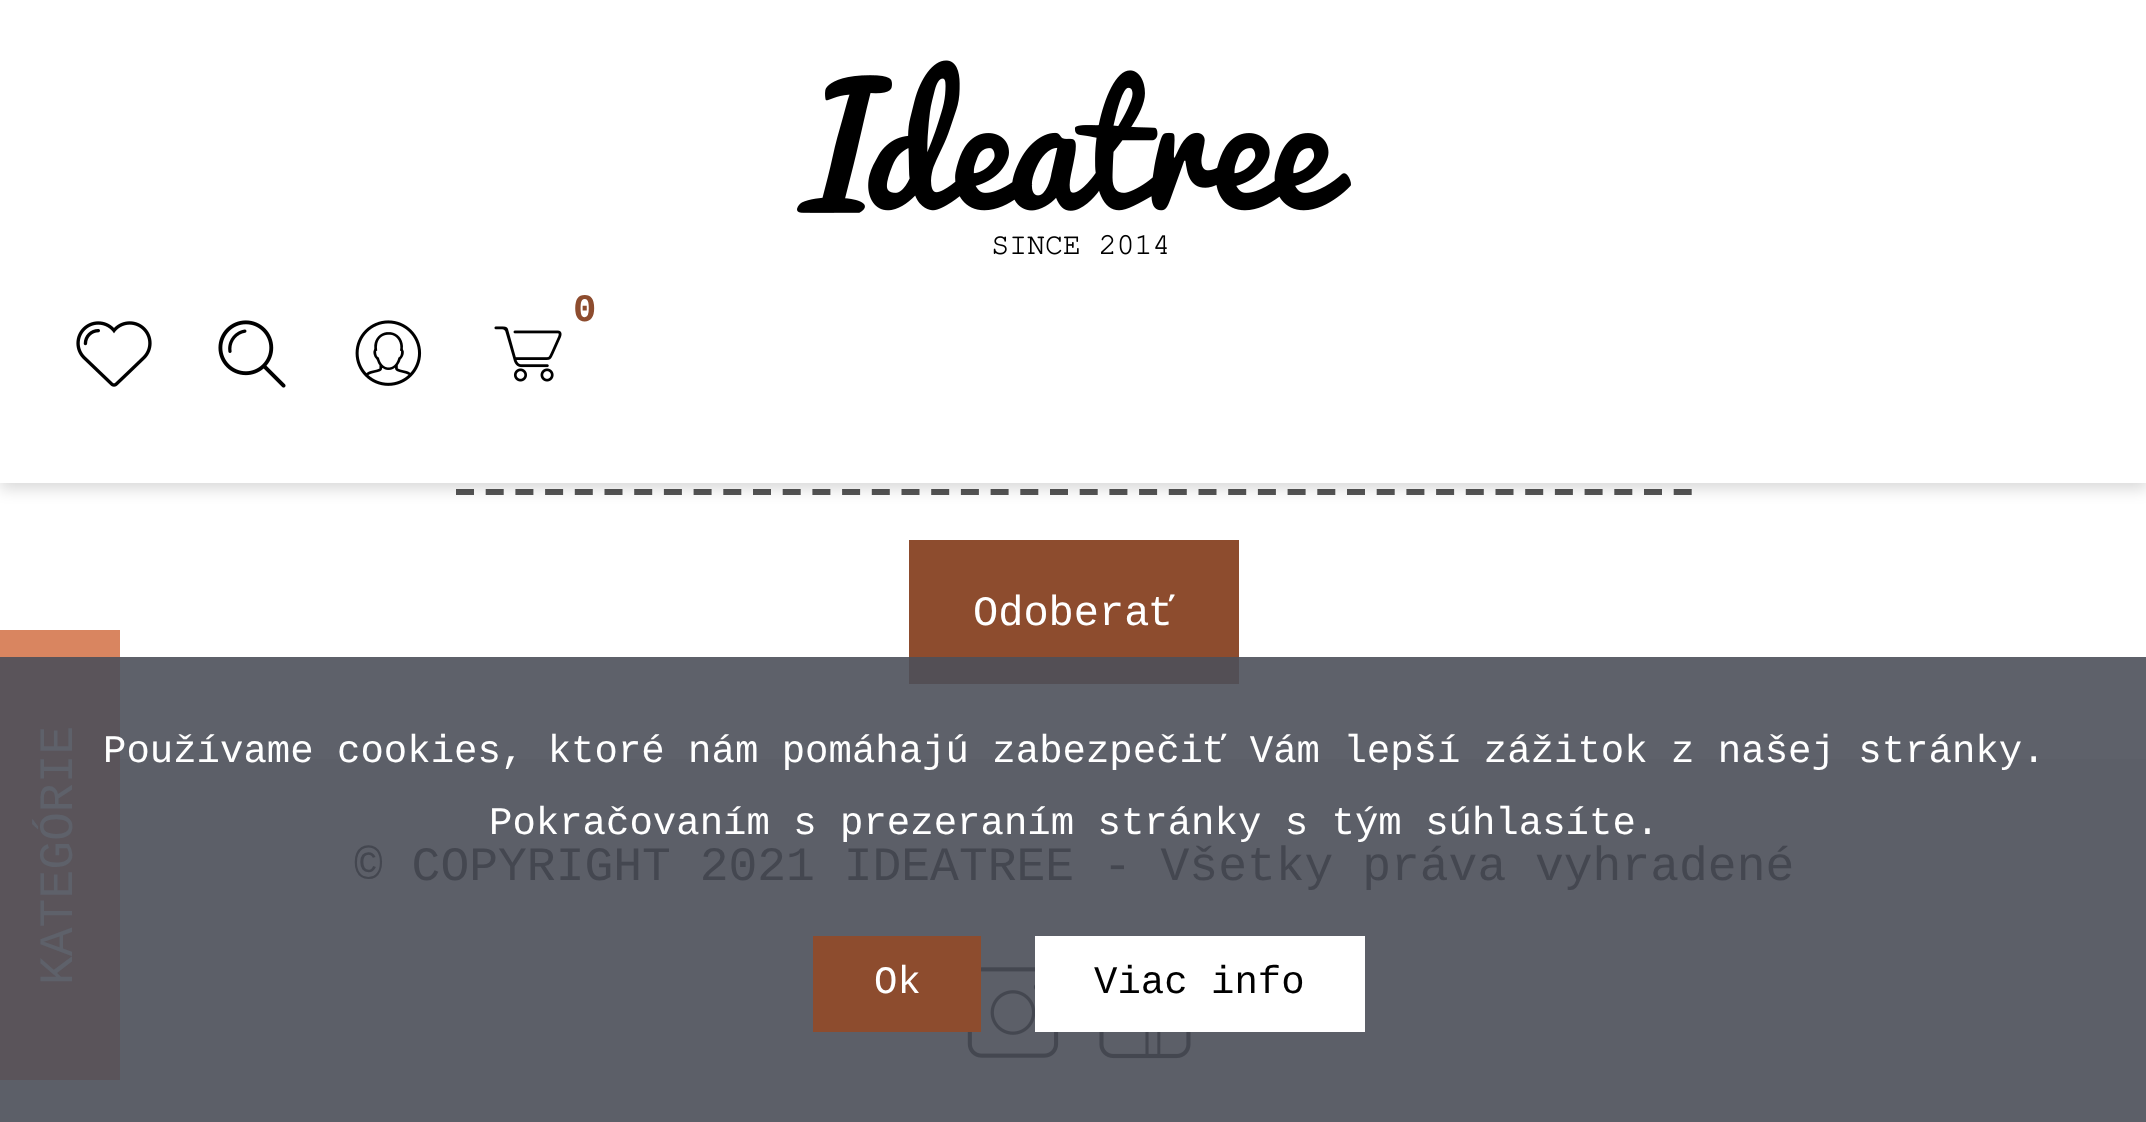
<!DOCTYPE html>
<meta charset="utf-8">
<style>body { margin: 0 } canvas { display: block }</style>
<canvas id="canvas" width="2146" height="1122"></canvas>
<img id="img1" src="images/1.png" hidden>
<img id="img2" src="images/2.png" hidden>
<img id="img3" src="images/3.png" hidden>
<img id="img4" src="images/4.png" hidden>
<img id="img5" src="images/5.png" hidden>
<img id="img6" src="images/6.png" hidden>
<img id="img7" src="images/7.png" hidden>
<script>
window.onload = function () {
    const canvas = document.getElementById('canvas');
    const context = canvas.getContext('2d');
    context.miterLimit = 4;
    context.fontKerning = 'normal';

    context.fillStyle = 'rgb(255, 255, 255)';
    context.fillRect(0, 0, 2146, 1122);
    context.fillStyle = 'rgb(94, 97, 106)';
    context.fillRect(120, 657, 2026, 102);
    context.beginPath();
    context.moveTo(456, 492);
    context.lineTo(1692, 492);
    context.strokeStyle = 'rgb(85, 85, 85)';
    context.lineWidth = 6;
    context.setLineDash([18, 11.7]);
    context.stroke();
    context.fillStyle = 'rgba(0, 0, 0, 0.15)';
    context.filter = 'blur(7.5px)';
    context.beginPath();
    context.rect(0, 6, 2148, 483);
    context.fill();
    context.filter = 'none';
    context.fillStyle = 'rgb(255, 255, 255)';
    context.fillRect(0, 0, 2146, 483);
    context.drawImage(document.getElementById('img1'), 797, 60, 554, 195);
    context.drawImage(document.getElementById('img2'), 494, 326, 68, 56);
    context.drawImage(document.getElementById('img3'), 76, 321, 76, 66);
    context.drawImage(document.getElementById('img4'), 218, 320, 68, 68);
    context.drawImage(document.getElementById('img5'), 355, 320, 67, 66);
    context.fillStyle = 'rgb(141, 76, 46)';
    context.fillRect(909, 540, 330, 117);
    context.fillStyle = 'rgb(83, 79, 85)';
    context.fillRect(909, 657, 330, 27);
    context.fillStyle = 'rgb(217, 133, 96)';
    context.fillRect(0, 630, 120, 27);
    context.fillStyle = 'rgb(92, 95, 104)';
    context.fillRect(0, 759, 2146, 363);
    context.fillStyle = 'rgb(90, 84, 90)';
    context.fillRect(0, 657, 120, 423);
    context.drawImage(document.getElementById('img6'), 967, 967, 92, 91);
    context.fillStyle = 'rgb(141, 76, 46)';
    context.fillRect(813, 936, 168, 96);
    context.fillStyle = 'rgb(255, 255, 255)';
    context.fillRect(1035, 936, 330, 96);
    context.drawImage(document.getElementById('img7'), 1099, 1032, 92, 27);
    context.font = 'bold 39px Liberation Mono';
    context.fillStyle = 'rgb(141, 76, 46)';
    context.fillText('0', 573, 321);
    context.font = '42px Liberation Mono';
    context.fillStyle = 'rgb(255, 255, 255)';
    context.fillText('Odoberať', 973, 625);
    context.font = '48px Liberation Mono';
    context.fillStyle = 'rgb(94, 97, 106)';
    context.save();
    context.translate(72, 985);
    context.rotate(-90 * Math.PI / 180);
    context.fillText('KATEGÓRIE', 0, 0);
    context.restore();
    context.font = '39px Liberation Mono';
    context.fillStyle = 'rgb(255, 255, 255)';
    context.fillText('Používame cookies, ktoré nám pomáhajú zabezpečiť Vám lepší zážitok z našej stránky.', 103, 762);
    context.fillText('Pokračovaním s prezeraním stránky s tým súhlasíte.', 489, 834);
    context.fillText('Ok', 874, 993);
    context.fillStyle = 'rgb(0, 0, 0)';
    context.fillText('Viac info', 1094, 993);
    context.font = '48px Liberation Mono';
    context.fillStyle = 'rgb(68, 71, 80)';
    context.fillText('© COPYRIGHT 2021 IDEATREE - Všetky práva vyhradené', 354, 880);
};
</script>
